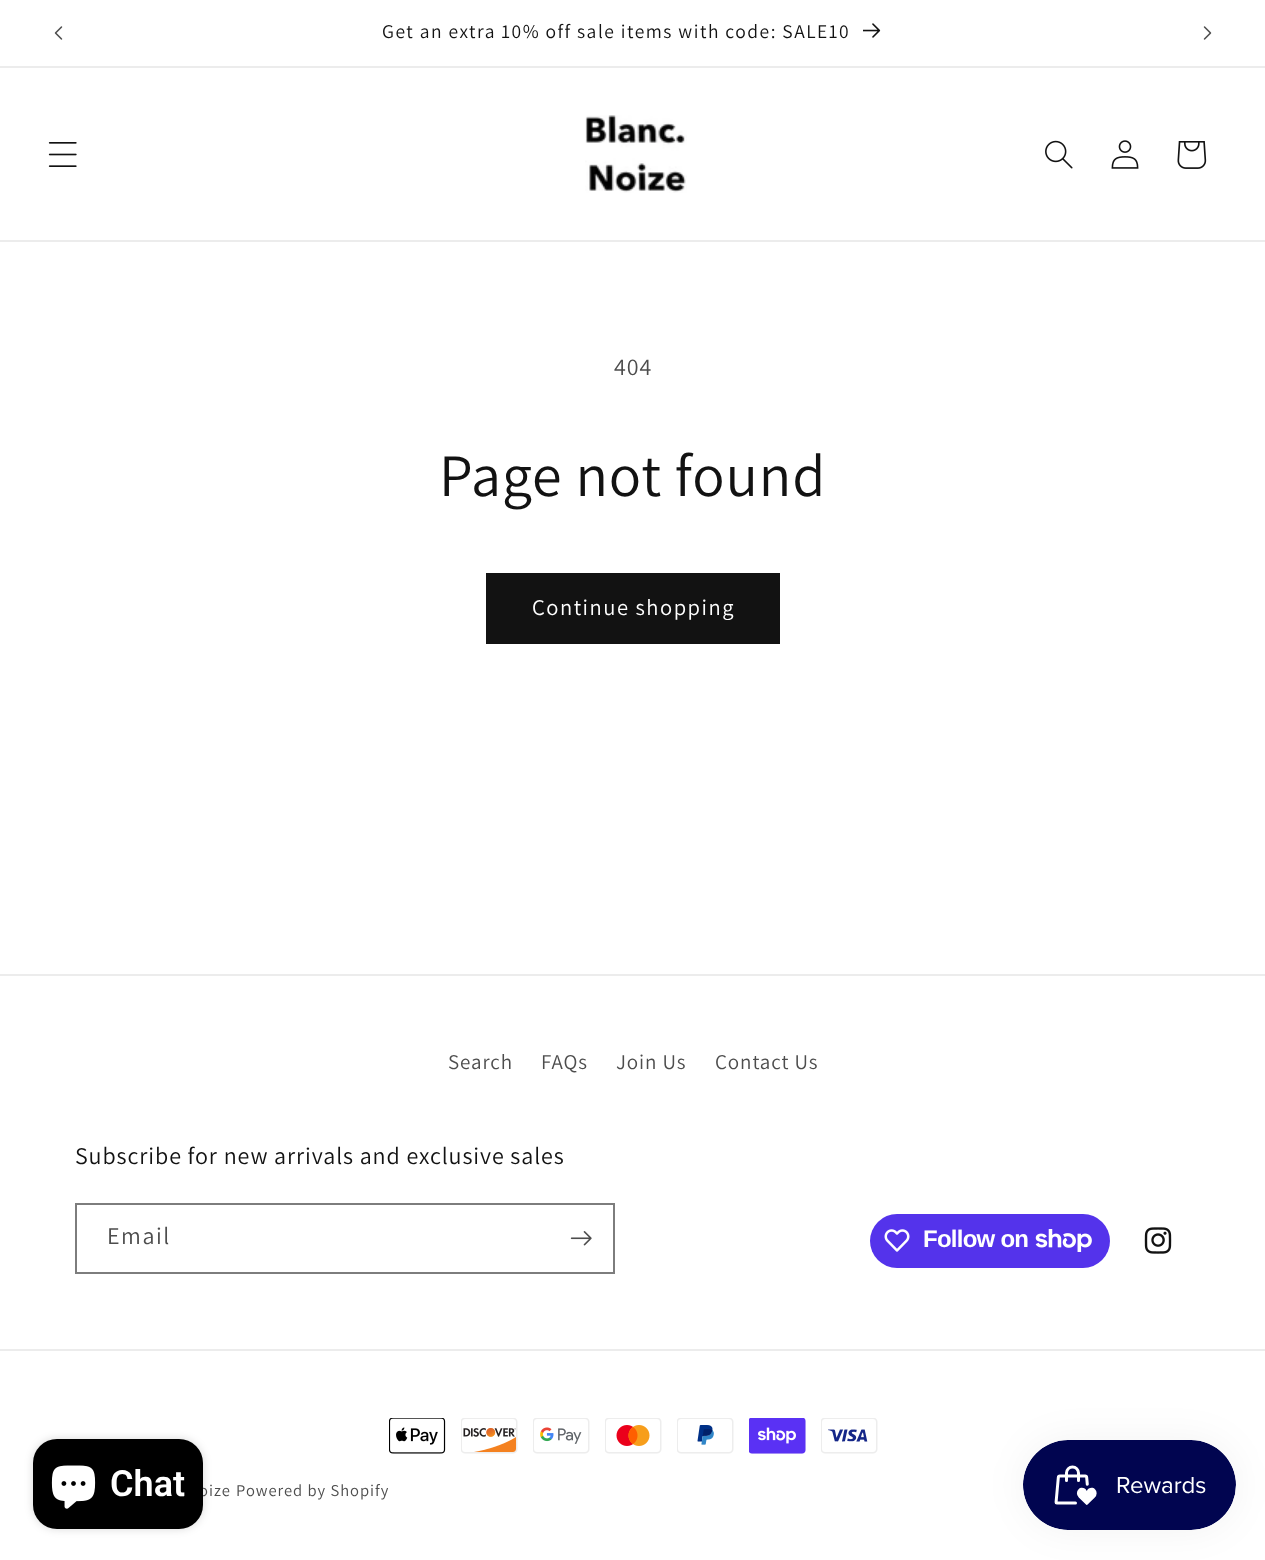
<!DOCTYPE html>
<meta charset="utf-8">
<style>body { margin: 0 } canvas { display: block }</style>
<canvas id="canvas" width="1265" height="1560"></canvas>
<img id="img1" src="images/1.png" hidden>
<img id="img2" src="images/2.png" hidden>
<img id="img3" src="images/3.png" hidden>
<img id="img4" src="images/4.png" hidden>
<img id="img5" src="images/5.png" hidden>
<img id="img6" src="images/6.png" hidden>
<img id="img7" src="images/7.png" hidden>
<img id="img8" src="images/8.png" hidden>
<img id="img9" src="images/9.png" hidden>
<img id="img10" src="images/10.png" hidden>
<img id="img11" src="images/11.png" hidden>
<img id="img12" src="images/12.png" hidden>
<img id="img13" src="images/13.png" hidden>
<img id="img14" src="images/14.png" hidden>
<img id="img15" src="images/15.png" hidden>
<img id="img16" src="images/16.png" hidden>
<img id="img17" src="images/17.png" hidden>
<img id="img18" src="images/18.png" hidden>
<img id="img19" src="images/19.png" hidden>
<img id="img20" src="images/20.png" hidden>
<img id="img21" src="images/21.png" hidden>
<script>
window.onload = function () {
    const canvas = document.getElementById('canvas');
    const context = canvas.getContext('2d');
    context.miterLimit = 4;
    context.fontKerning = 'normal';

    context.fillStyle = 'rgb(255, 255, 255)';
    context.fillRect(0, 0, 1265, 1560);
    context.fillStyle = 'rgb(236, 236, 236)';
    context.fillRect(0, 66, 1265, 2);
    context.drawImage(document.getElementById('img1'), 54, 26, 9, 14);
    context.drawImage(document.getElementById('img2'), 863, 23, 18, 15);
    context.drawImage(document.getElementById('img3'), 1203, 26, 9, 14);
    context.fillRect(0, 240, 1265, 2);
    context.drawImage(document.getElementById('img4'), 48, 142, 29, 25);
    context.drawImage(document.getElementById('img5'), 585, 115, 102, 78);
    context.drawImage(document.getElementById('img6'), 1045, 140, 28, 29);
    context.drawImage(document.getElementById('img7'), 1111, 140, 28, 29);
    context.drawImage(document.getElementById('img8'), 1177, 141, 30, 28);
    context.fillStyle = 'rgb(18, 18, 18)';
    context.fillRect(486, 573, 294, 71);
    context.fillStyle = 'rgb(236, 236, 236)';
    context.fillRect(0, 974, 1265, 2);
    context.strokeStyle = 'rgb(125, 125, 125)';
    context.lineWidth = 2;
    context.strokeRect(76, 1204, 538, 69);
    context.drawImage(document.getElementById('img9'), 570, 1231, 22, 15);
    context.fillStyle = 'rgb(84, 51, 235)';
    context.beginPath();
    context.roundRect(870, 1214, 240, 54, 27);
    context.fill();
    context.drawImage(document.getElementById('img10'), 884, 1229, 26, 23);
    context.drawImage(document.getElementById('img11'), 1035, 1229, 57, 23);
    context.drawImage(document.getElementById('img12'), 1144, 1227, 28, 27);
    context.fillStyle = 'rgb(236, 236, 236)';
    context.fillRect(0, 1349, 1265, 2);
    context.drawImage(document.getElementById('img13'), 389, 1418, 57, 36);
    context.drawImage(document.getElementById('img14'), 461, 1418, 57, 36);
    context.drawImage(document.getElementById('img15'), 533, 1418, 57, 36);
    context.drawImage(document.getElementById('img16'), 605, 1418, 57, 36);
    context.drawImage(document.getElementById('img17'), 677, 1418, 57, 36);
    context.drawImage(document.getElementById('img18'), 749, 1418, 57, 36);
    context.drawImage(document.getElementById('img19'), 821, 1418, 57, 36);
    context.fillStyle = 'rgba(0, 0, 0, 0.05)';
    context.filter = 'blur(19px)';
    context.beginPath();
    context.roundRect(1023, 1440, 213, 90, 45);
    context.fill();
    context.filter = 'none';
    context.drawImage(document.getElementById('img20'), 1023, 1440, 213, 90);
    context.fillStyle = 'rgba(0, 0, 0, 0.15)';
    context.filter = 'blur(4px)';
    context.beginPath();
    context.roundRect(33, 1439, 170, 90, 24);
    context.fill();
    context.filter = 'none';
    context.letterSpacing = '1.5px';
    context.font = '19.5px Assistant';
    context.fillStyle = 'rgb(18, 18, 18)';
    context.fillText('Get an extra 10% off sale items with code: SALE10', 382, 38);
    context.letterSpacing = '0.9px';
    context.font = '24px Assistant';
    context.fillStyle = 'rgb(77, 77, 77)';
    context.fillText('404', 614, 375);
    context.font = '60px Assistant';
    context.fillStyle = 'rgb(18, 18, 18)';
    context.fillText('Page not found', 439, 496);
    context.letterSpacing = '1.5px';
    context.font = '22.5px Assistant';
    context.fillStyle = 'rgb(255, 255, 255)';
    context.fillText('Continue shopping', 532, 615);
    context.letterSpacing = '0.9px';
    context.font = '21px Assistant';
    context.fillStyle = 'rgb(77, 77, 77)';
    context.fillText('Search', 448, 1069);
    context.fillText('FAQs', 541, 1069);
    context.fillText('Join Us', 616, 1069);
    context.fillText('Contact Us', 715, 1069);
    context.font = '24px Assistant';
    context.fillStyle = 'rgb(18, 18, 18)';
    context.fillText('Subscribe for new arrivals and exclusive sales', 75, 1164);
    context.letterSpacing = '1.5px';
    context.fillStyle = 'rgb(77, 77, 77)';
    context.fillText('Email', 107, 1244);
    context.letterSpacing = '-0.75px';
    context.font = 'bold 24px Liberation Sans';
    context.fillStyle = 'rgb(255, 255, 255)';
    context.fillText('Follow on', 923, 1247);
    context.letterSpacing = '1px';
    context.font = '16.5px Assistant';
    context.fillStyle = 'rgb(77, 77, 77)';
    context.fillText('oize', 199, 1496);
    context.fillText('Powered by Shopify', 236, 1496);
    context.fillStyle = 'rgb(0, 0, 0)';
    context.beginPath();
    context.roundRect(33, 1439, 170, 90, 24);
    context.fill();
    context.drawImage(document.getElementById('img21'), 51, 1465, 45, 44);
    context.letterSpacing = '0px';
    context.font = '600 36px Roboto';
    context.fillStyle = 'rgb(255, 255, 255)';
    context.fillText('Chat', 110, 1496);
};
</script>
